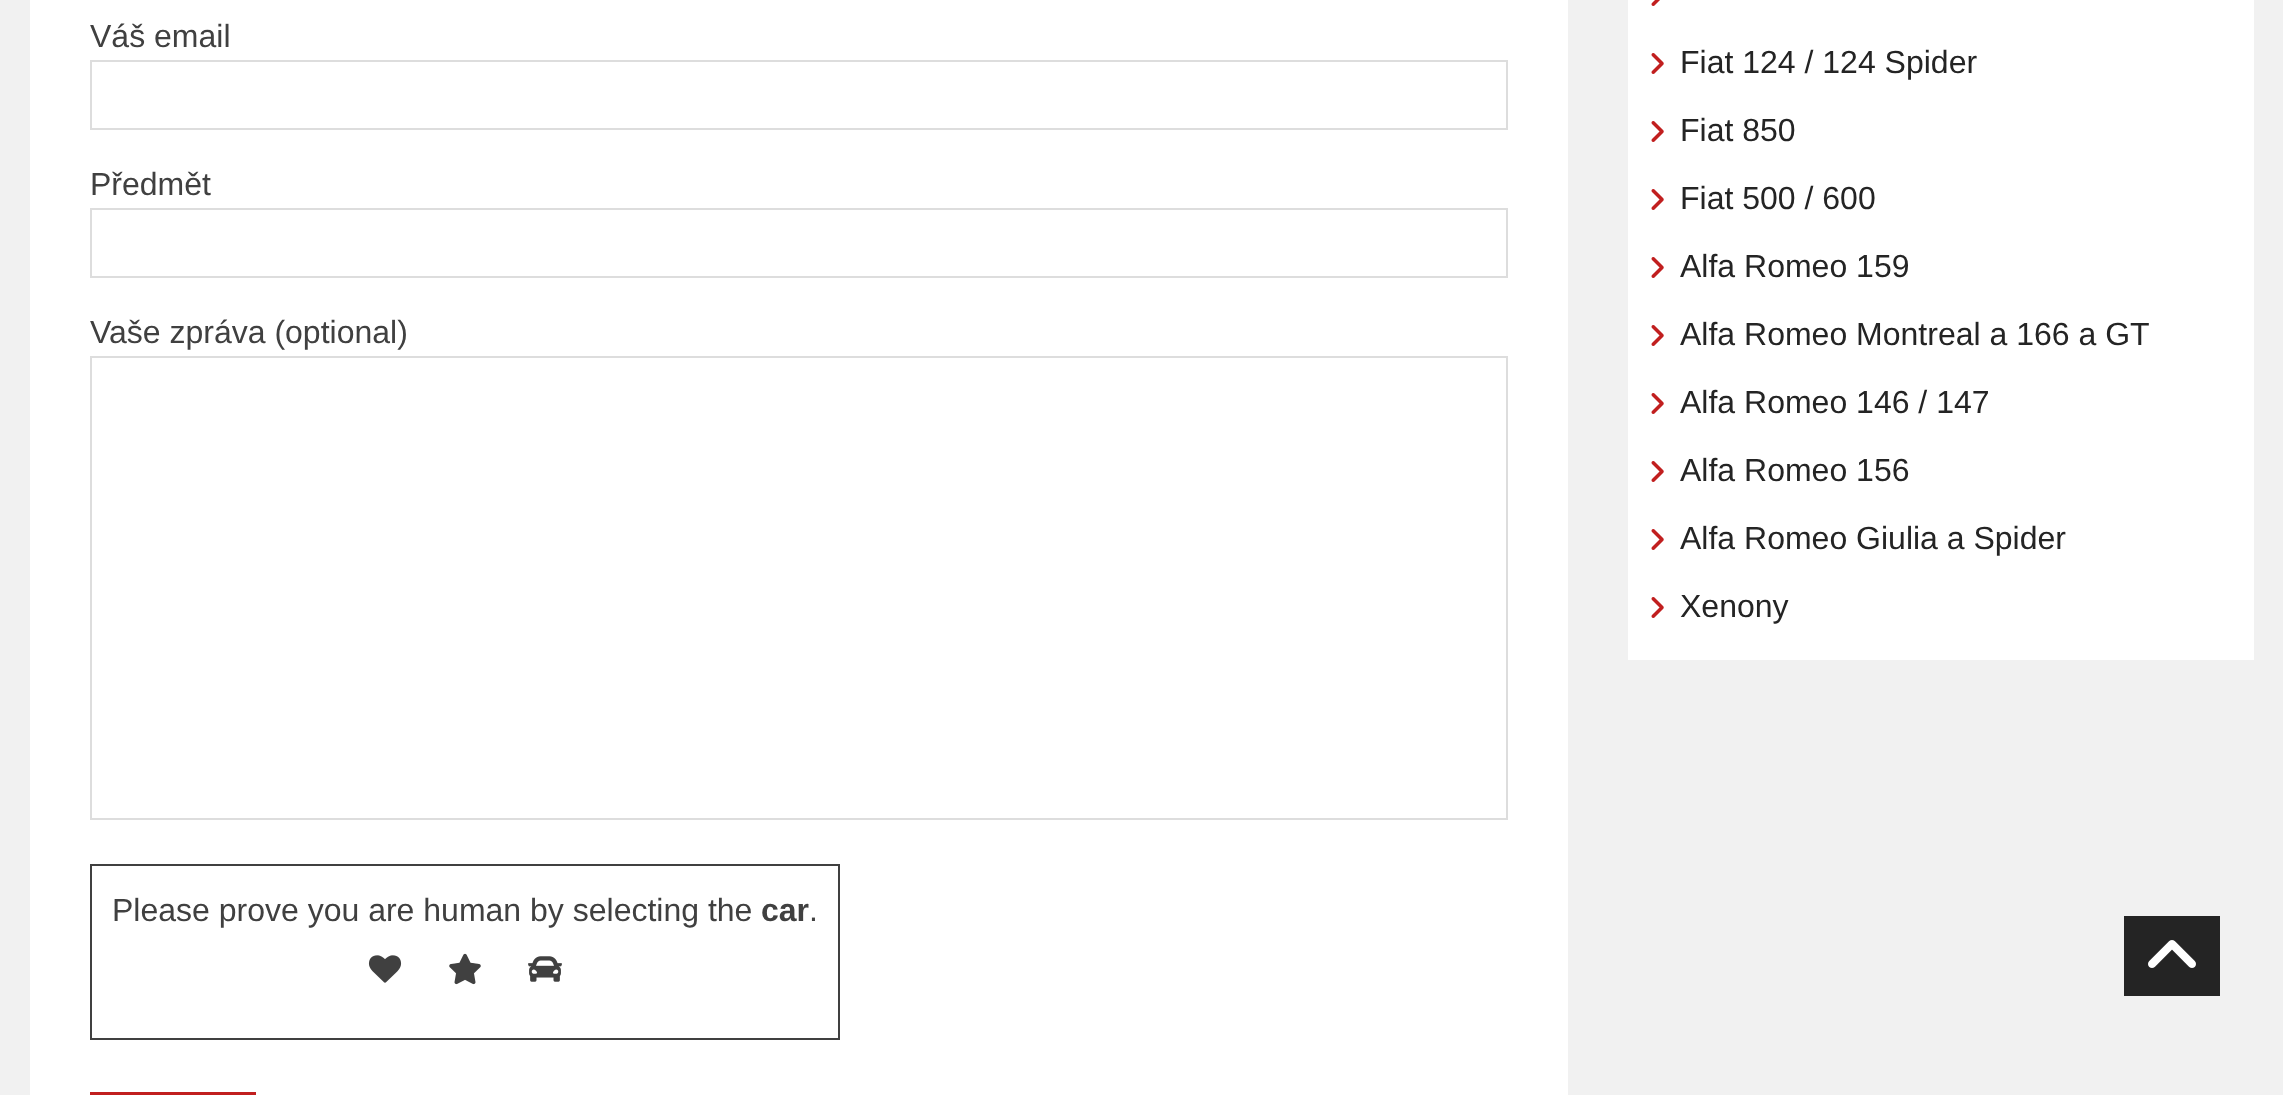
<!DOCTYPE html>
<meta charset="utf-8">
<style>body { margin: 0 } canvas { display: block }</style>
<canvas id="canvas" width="2283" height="1095"></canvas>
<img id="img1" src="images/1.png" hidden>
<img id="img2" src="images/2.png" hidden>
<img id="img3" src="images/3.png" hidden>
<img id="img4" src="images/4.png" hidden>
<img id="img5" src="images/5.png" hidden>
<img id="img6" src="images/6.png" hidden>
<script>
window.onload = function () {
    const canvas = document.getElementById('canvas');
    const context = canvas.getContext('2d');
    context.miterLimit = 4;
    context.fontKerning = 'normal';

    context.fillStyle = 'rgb(241, 241, 241)';
    context.fillRect(0, 0, 2283, 1095);
    context.fillStyle = 'rgb(255, 255, 255)';
    context.fillRect(30, 0, 1538, 1095);
    context.strokeStyle = 'rgb(221, 221, 221)';
    context.lineWidth = 2;
    context.strokeRect(91, 61, 1416, 68);
    context.strokeRect(91, 209, 1416, 68);
    context.strokeRect(91, 357, 1416, 462);
    context.strokeStyle = 'rgb(64, 64, 64)';
    context.strokeRect(91, 865, 748, 174);
    context.drawImage(document.getElementById('img1'), 368, 955, 34, 28);
    context.drawImage(document.getElementById('img2'), 449, 953, 32, 32);
    context.drawImage(document.getElementById('img3'), 528, 956, 34, 26);
    context.fillStyle = 'rgb(193, 31, 31)';
    context.fillRect(90, 1092, 166, 3);
    context.fillStyle = 'rgb(255, 255, 255)';
    context.fillRect(1628, 0, 626, 660);
    context.drawImage(document.getElementById('img4'), 1651, 0, 9, 6);
    context.drawImage(document.getElementById('img5'), 1651, 53, 13, 21);
    context.drawImage(document.getElementById('img5'), 1651, 121, 13, 21);
    context.drawImage(document.getElementById('img5'), 1651, 189, 13, 21);
    context.drawImage(document.getElementById('img5'), 1651, 257, 13, 21);
    context.drawImage(document.getElementById('img5'), 1651, 325, 13, 21);
    context.drawImage(document.getElementById('img5'), 1651, 393, 13, 21);
    context.drawImage(document.getElementById('img5'), 1651, 461, 13, 21);
    context.drawImage(document.getElementById('img5'), 1651, 529, 13, 21);
    context.drawImage(document.getElementById('img5'), 1651, 597, 13, 21);
    context.fillStyle = 'rgb(36, 36, 36)';
    context.fillRect(2124, 916, 96, 80);
    context.drawImage(document.getElementById('img6'), 2148, 940, 48, 28);
    context.font = '32px Liberation Sans';
    context.fillStyle = 'rgb(64, 64, 64)';
    context.fillText('Váš email', 90, 47);
    context.fillText('Předmět', 90, 195);
    context.fillText('Vaše zpráva (optional)', 90, 343);
    context.fillText('Please prove you are human by selecting the', 112, 921);
    context.font = 'bold 32px Liberation Sans';
    context.fillText('car', 761, 921);
    context.font = '32px Liberation Sans';
    context.fillText('.', 809, 921);
    context.fillStyle = 'rgb(36, 36, 36)';
    context.fillText('Fiat 124 / 124 Spider', 1680, 73);
    context.fillText('Fiat 850', 1680, 141);
    context.fillText('Fiat 500 / 600', 1680, 209);
    context.fillText('Alfa Romeo 159', 1680, 277);
    context.fillText('Alfa Romeo Montreal a 166 a GT', 1680, 345);
    context.fillText('Alfa Romeo 146 / 147', 1680, 413);
    context.fillText('Alfa Romeo 156', 1680, 481);
    context.fillText('Alfa Romeo Giulia a Spider', 1680, 549);
    context.fillText('Xenony', 1680, 617);
};
</script>
